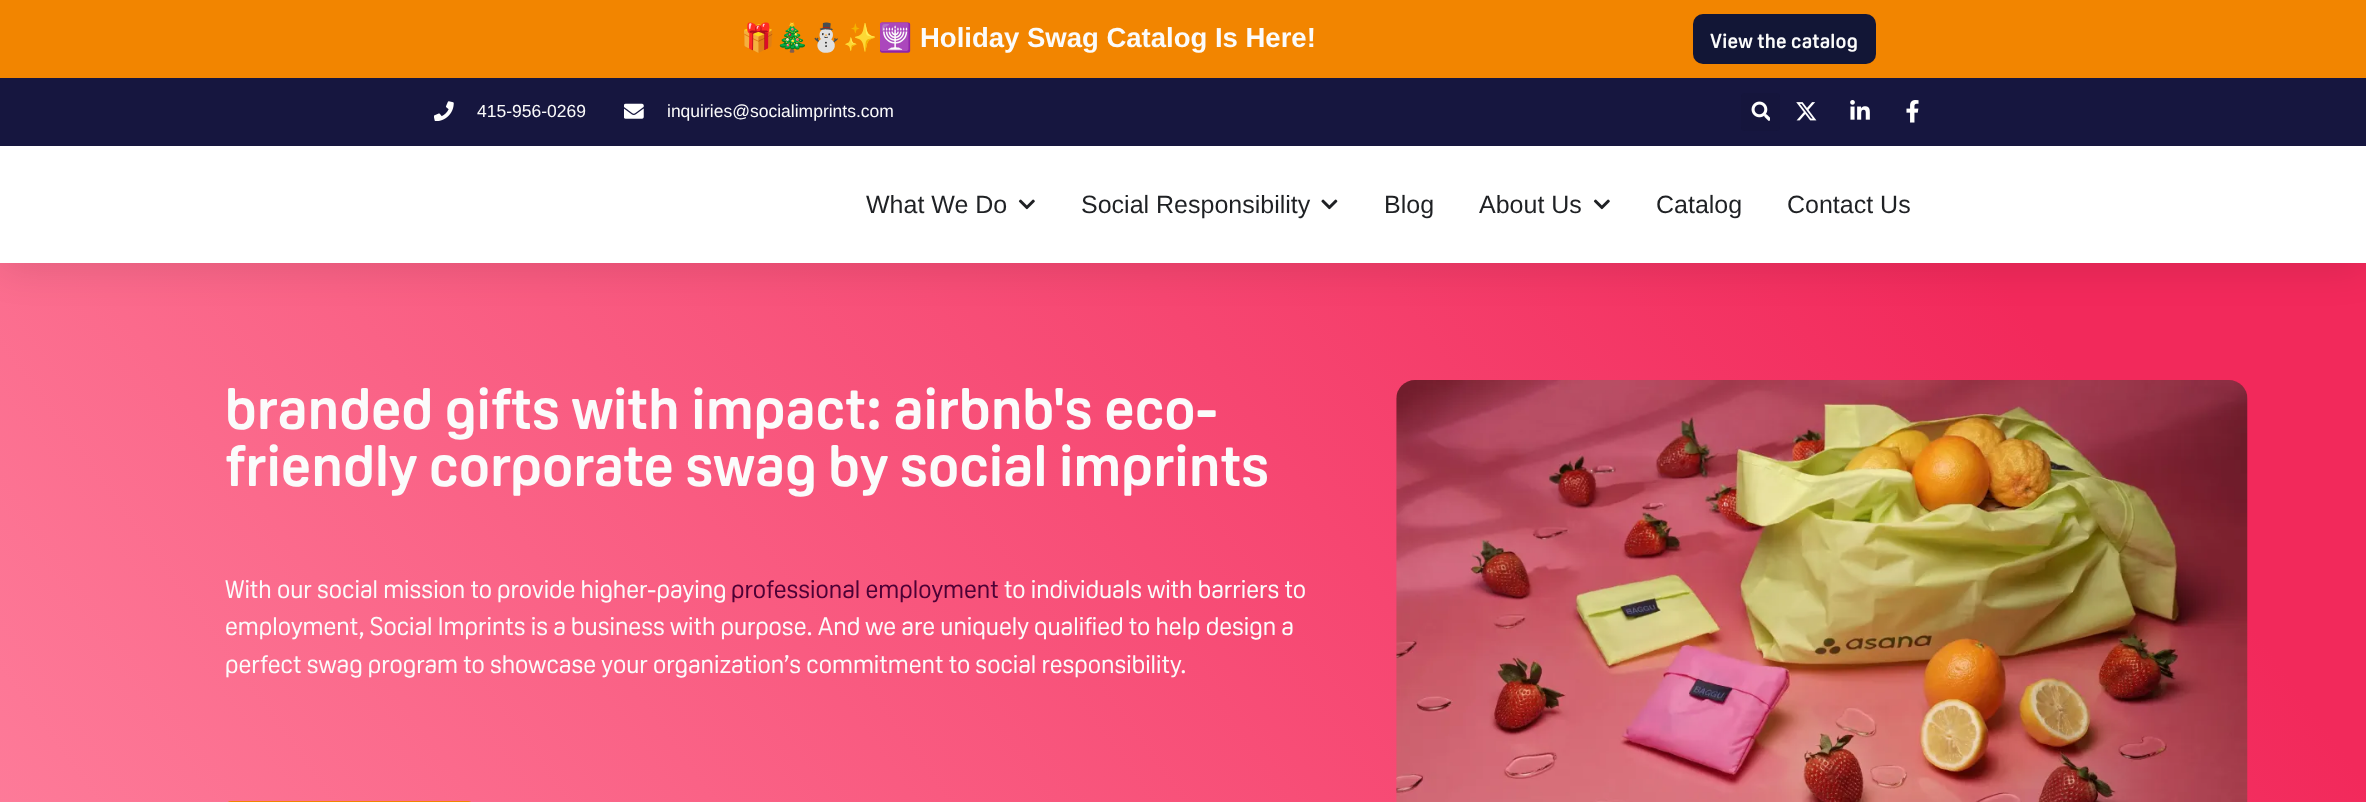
<!DOCTYPE html>
<meta charset="utf-8">
<style>body { margin: 0 } canvas { display: block }</style>
<canvas id="canvas" width="2366" height="802"></canvas>
<img id="img1" src="images/1.png" hidden>
<img id="img2" src="images/2.png" hidden>
<img id="img3" src="images/3.png" hidden>
<img id="img4" src="images/4.png" hidden>
<img id="img5" src="images/5.png" hidden>
<img id="img6" src="images/6.png" hidden>
<img id="img7" src="images/7.png" hidden>
<img id="img8" src="images/8.png" hidden>
<img id="img9" src="images/9.png" hidden>
<script>
window.onload = function () {
    const canvas = document.getElementById('canvas');
    const context = canvas.getContext('2d');
    context.miterLimit = 4;
    context.fontKerning = 'normal';
    let gradient;

    context.fillStyle = 'rgb(255, 255, 255)';
    context.fillRect(0, 0, 2366, 802);
    gradient = context.createLinearGradient(235, 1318, 2132, -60);
    gradient.addColorStop(0, 'rgb(254, 127, 156)');
    gradient.addColorStop(0.87, 'rgb(242, 41, 91)');
    context.fillStyle = gradient;
    context.fillRect(0, 263, 2366, 539);
    context.fillStyle = 'rgba(0, 0, 0, 0.1)';
    context.filter = 'blur(19px)';
    context.beginPath();
    context.rect(0, 6, 2366, 263);
    context.fill();
    context.filter = 'none';
    context.fillStyle = 'rgb(242, 133, 0)';
    context.fillRect(0, 0, 2366, 78);
    context.fillStyle = 'rgb(18, 22, 54)';
    context.beginPath();
    context.roundRect(1693, 14, 183, 50, 10);
    context.fill();
    context.fillStyle = 'rgb(22, 22, 63)';
    context.fillRect(0, 78, 2366, 68);
    context.drawImage(document.getElementById('img1'), 434, 101, 20, 20);
    context.drawImage(document.getElementById('img2'), 624, 103, 20, 16);
    context.fillStyle = 'rgb(21, 21, 60)';
    context.beginPath();
    context.roundRect(1741, 93, 39, 38, 4);
    context.fill();
    context.drawImage(document.getElementById('img3'), 1751, 101, 19, 20);
    context.drawImage(document.getElementById('img4'), 1796, 102, 21, 19);
    context.drawImage(document.getElementById('img5'), 1850, 100, 20, 20);
    context.drawImage(document.getElementById('img6'), 1906, 100, 13, 23);
    context.fillStyle = 'rgb(255, 255, 255)';
    context.fillRect(0, 146, 2366, 117);
    context.drawImage(document.getElementById('img7'), 1018, 199, 17, 11);
    context.drawImage(document.getElementById('img8'), 1321, 199, 17, 11);
    context.drawImage(document.getElementById('img7'), 1593, 199, 17, 11);
    context.beginPath();
    context.roundRect(225.5, 801.5, 248, 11, 9.5);
    context.strokeStyle = 'rgb(242, 133, 0)';
    context.stroke();
    context.drawImage(document.getElementById('img9'), 1396, 380, 852, 422);
    context.font = 'bold 27.5px Noto Color Emoji';
    context.fillStyle = 'rgb(251, 251, 251)';
    context.fillText('🎁🎄⛄️✨🕎', 741, 47);
    context.font = 'bold 27.5px Liberation Sans';
    context.fillText('Holiday Swag Catalog Is Here!', 920, 47);
    context.letterSpacing = '0.25px';
    context.font = 'bold 20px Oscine';
    context.fillText('View the catalog', 1710, 48);
    context.letterSpacing = '0px';
    context.font = '17.5px Liberation Sans';
    context.fillText('415-956-0269', 477, 117);
    context.fillText('inquiries@socialimprints.com', 667, 117);
    context.font = '25px Liberation Sans';
    context.fillStyle = 'rgb(31, 33, 36)';
    context.fillText('What We Do', 866, 213);
    context.fillText('Social Responsibility', 1081, 213);
    context.fillText('Blog', 1384, 213);
    context.fillText('About Us', 1479, 213);
    context.fillText('Catalog', 1656, 213);
    context.fillText('Contact Us', 1787, 213);
    context.font = 'bold 57.5px Oscine';
    context.fillStyle = 'rgb(251, 251, 251)';
    context.fillText('branded gifts with impact: airbnb\'s eco-', 225, 429);
    context.fillText('friendly corporate swag by social imprints', 225, 486);
    context.font = '25px Oscine';
    context.fillText('With our social mission to provide higher-paying', 225, 598);
    context.fillStyle = 'rgb(77, 1, 53)';
    context.fillText('professional employment', 731, 598);
    context.fillStyle = 'rgb(251, 251, 251)';
    context.fillText('to individuals with barriers to', 1004, 598);
    context.fillText('employment, Social Imprints is a business with purpose. And we are uniquely qualified to help design a', 225, 635);
    context.fillText('perfect swag program to showcase your organization’s commitment to social responsibility.', 225, 673);
};
</script>
